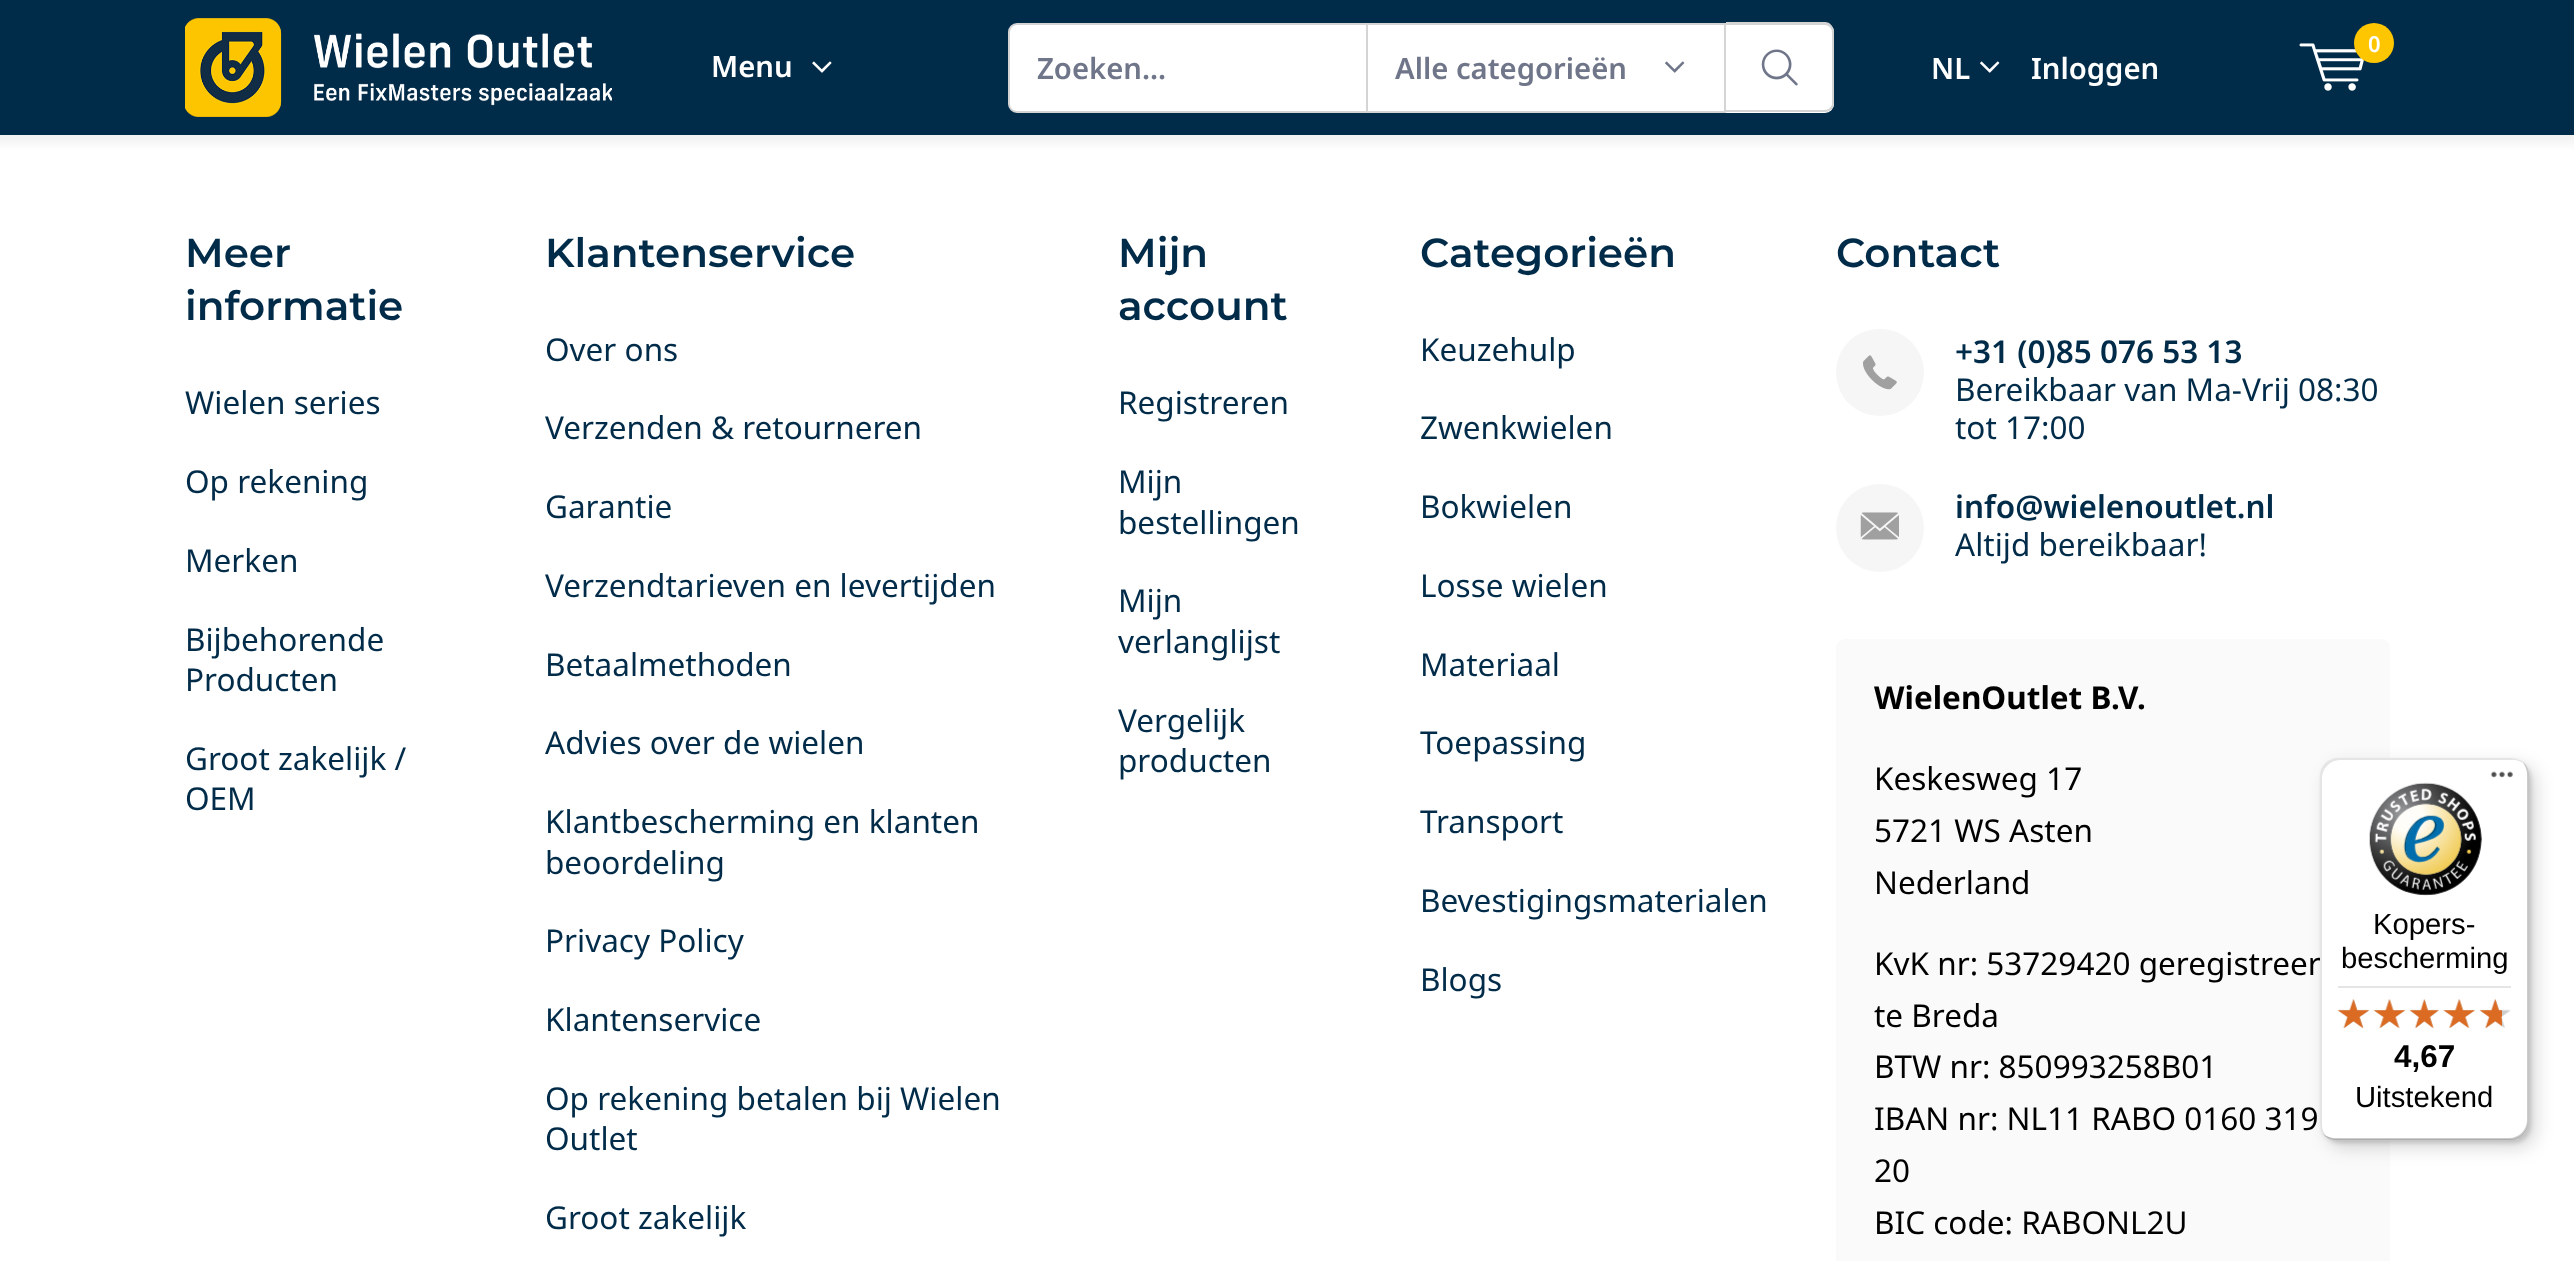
<!DOCTYPE html>
<meta charset="utf-8">
<style>body { margin: 0 } canvas { display: block }</style>
<canvas id="canvas" width="2574" height="1261"></canvas>
<img id="img1" src="images/1.png" hidden>
<img id="img2" src="images/2.png" hidden>
<img id="img3" src="images/3.png" hidden>
<img id="img4" src="images/4.png" hidden>
<img id="img5" src="images/5.png" hidden>
<img id="img6" src="images/6.png" hidden>
<img id="img7" src="images/7.png" hidden>
<img id="img8" src="images/8.png" hidden>
<img id="img9" src="images/9.png" hidden>
<img id="img10" src="images/10.png" hidden>
<img id="img11" src="images/16.png" hidden>
<img id="img12" src="images/11.png" hidden>
<img id="img13" src="images/17.png" hidden>
<img id="img14" src="images/12.png" hidden>
<img id="img15" src="images/18.png" hidden>
<img id="img16" src="images/13.png" hidden>
<img id="img17" src="images/19.png" hidden>
<img id="img18" src="images/14.png" hidden>
<img id="img19" src="images/20.png" hidden>
<img id="img20" src="images/15.png" hidden>
<script>
window.onload = function () {
    const canvas = document.getElementById('canvas');
    const context = canvas.getContext('2d');
    context.miterLimit = 4;
    context.fontKerning = 'normal';

    context.fillStyle = 'rgb(255, 255, 255)';
    context.fillRect(0, 0, 2574, 1261);
    context.fillStyle = 'rgba(0, 0, 0, 0.05)';
    context.filter = 'blur(4.5px)';
    context.beginPath();
    context.rect(-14, 9, 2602, 135);
    context.fill();
    context.filter = 'none';
    context.fillStyle = 'rgb(0, 43, 73)';
    context.fillRect(0, 0, 2574, 135);
    context.drawImage(document.getElementById('img1'), 185, 18, 427, 99);
    context.drawImage(document.getElementById('img2'), 812, 61, 20, 12);
    context.fillStyle = 'rgb(255, 255, 255)';
    context.beginPath();
    context.rect(1367, 24, 358, 88);
    context.fill();
    context.strokeStyle = 'rgb(212, 212, 212)';
    context.lineWidth = 2;
    context.stroke();
    context.beginPath();
    context.roundRect(1009, 24, 358, 88, [8, 0, 0, 8]);
    context.fill();
    context.stroke();
    context.drawImage(document.getElementById('img3'), 1665, 61, 20, 12);
    context.beginPath();
    context.roundRect(1726, 23, 108, 90, [0, 9, 9, 0]);
    context.fill();
    context.fillStyle = 'rgb(212, 212, 212)';
    context.beginPath();
    context.moveTo(1726, 22);
    context.lineTo(1825, 22);
    context.bezierCurveTo(1830, 22, 1834, 27, 1834, 32);
    context.lineTo(1834, 104);
    context.bezierCurveTo(1834, 108, 1830, 112, 1825, 112);
    context.lineTo(1726, 112);
    context.closePath();
    context.moveTo(1726, 25);
    context.lineTo(1825, 25);
    context.bezierCurveTo(1828, 25, 1832, 28, 1832, 32);
    context.lineTo(1832, 104);
    context.bezierCurveTo(1832, 107, 1828, 110, 1825, 110);
    context.lineTo(1726, 110);
    context.closePath();
    context.fill('evenodd');
    context.drawImage(document.getElementById('img4'), 1761, 49, 37, 37);
    context.drawImage(document.getElementById('img5'), 2299, 43, 65, 48);
    context.fillStyle = 'rgb(253, 198, 0)';
    context.beginPath();
    context.arc(2374, 43, 20, 0, 2 * Math.PI);
    context.fill();
    context.drawImage(document.getElementById('img6'), 1980, 61, 20, 12);
    context.fillStyle = 'rgb(246, 246, 246)';
    context.beginPath();
    context.roundRect(1836, 329, 88, 87, 43.5);
    context.fill();
    context.drawImage(document.getElementById('img7'), 1863, 355, 34, 35);
    context.beginPath();
    context.arc(1880, 528, 44, 0, 2 * Math.PI);
    context.fill();
    context.drawImage(document.getElementById('img8'), 1860, 512, 39, 28);
    context.fillStyle = 'rgb(250, 250, 250)';
    context.beginPath();
    context.roundRect(1836, 639, 554, 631, 9);
    context.fill();
    context.fillStyle = 'rgba(0, 0, 0, 0.15)';
    context.filter = 'blur(9px)';
    context.beginPath();
    context.roundRect(2327, 765, 209, 383, 18);
    context.fill();
    context.filter = 'none';
    context.filter = 'blur(2px)';
    context.beginPath();
    context.roundRect(2322, 761, 209, 382, 18);
    context.fill();
    context.filter = 'none';
    context.font = '600 29.25px Noto Sans';
    context.fillStyle = 'rgb(255, 255, 255)';
    context.fillText('Menu', 711, 77);
    context.fillStyle = 'rgb(112, 118, 137)';
    context.fillText('Zoeken...', 1037, 79);
    context.fillText('Alle categorieën', 1395, 79);
    context.font = '600 22px Noto Sans';
    context.fillStyle = 'rgb(255, 255, 255)';
    context.fillText('0', 2368, 52);
    context.font = '600 29.25px Noto Sans';
    context.fillText('NL', 1931, 79);
    context.fillText('Inloggen', 2031, 79);
    context.font = '600 40.5px Montserrat';
    context.fillStyle = 'rgb(0, 43, 73)';
    context.fillText('Meer', 185, 267);
    context.fillText('informatie', 185, 320);
    context.font = '31.5px Noto Sans';
    context.fillText('Wielen series', 185, 414);
    context.fillText('Op rekening', 185, 493);
    context.fillText('Merken', 185, 572);
    context.fillText('Bijbehorende', 185, 651);
    context.fillText('Producten', 185, 691);
    context.fillText('Groot zakelijk /', 185, 770);
    context.fillText('OEM', 185, 810);
    context.font = '600 40.5px Montserrat';
    context.fillText('Klantenservice', 545, 267);
    context.font = '31.5px Noto Sans';
    context.fillText('Over ons', 545, 361);
    context.fillText('Verzenden & retourneren', 545, 439);
    context.fillText('Garantie', 545, 518);
    context.fillText('Verzendtarieven en levertijden', 545, 597);
    context.fillText('Betaalmethoden', 545, 676);
    context.fillText('Advies over de wielen', 545, 754);
    context.fillText('Klantbescherming en klanten', 545, 833);
    context.fillText('beoordeling', 545, 874);
    context.fillText('Privacy Policy', 545, 952);
    context.fillText('Klantenservice', 545, 1031);
    context.fillText('Op rekening betalen bij Wielen', 545, 1110);
    context.fillText('Outlet', 545, 1150);
    context.fillText('Groot zakelijk', 545, 1229);
    context.font = '600 40.5px Montserrat';
    context.fillText('Mijn', 1118, 267);
    context.fillText('account', 1118, 320);
    context.font = '31.5px Noto Sans';
    context.fillText('Registreren', 1118, 414);
    context.fillText('Mijn', 1118, 493);
    context.fillText('bestellingen', 1118, 534);
    context.fillText('Mijn', 1118, 612);
    context.fillText('verlanglijst', 1118, 653);
    context.fillText('Vergelijk', 1118, 732);
    context.fillText('producten', 1118, 772);
    context.font = '600 40.5px Montserrat';
    context.fillText('Categorieën', 1420, 267);
    context.font = '31.5px Noto Sans';
    context.fillText('Keuzehulp', 1420, 361);
    context.fillText('Zwenkwielen', 1420, 439);
    context.fillText('Bokwielen', 1420, 518);
    context.fillText('Losse wielen', 1420, 597);
    context.fillText('Materiaal', 1420, 676);
    context.fillText('Toepassing', 1420, 754);
    context.fillText('Transport', 1420, 833);
    context.fillText('Bevestigingsmaterialen', 1420, 912);
    context.fillText('Blogs', 1420, 991);
    context.font = '600 40.5px Montserrat';
    context.fillText('Contact', 1836, 267);
    context.font = '600 31.5px Noto Sans';
    context.fillText('+31 (0)85 076 53 13', 1955, 363);
    context.font = '31.5px Noto Sans';
    context.fillText('Bereikbaar van Ma-Vrij 08:30', 1955, 401);
    context.fillText('tot 17:00', 1955, 439);
    context.font = '600 31.5px Noto Sans';
    context.fillText('info@wielenoutlet.nl', 1955, 518);
    context.font = '31.5px Noto Sans';
    context.fillText('Altijd bereikbaar!', 1955, 556);
    context.font = 'bold 31.5px Noto Sans';
    context.fillStyle = 'rgb(0, 0, 0)';
    context.fillText('WielenOutlet B.V.', 1874, 709);
    context.font = '31.5px Noto Sans';
    context.fillText('Keskesweg 17', 1874, 790);
    context.fillText('5721 WS Asten', 1874, 842);
    context.fillText('Nederland', 1874, 894);
    context.fillText('KvK nr: 53729420 geregistreer', 1874, 975);
    context.fillText('te Breda', 1874, 1027);
    context.fillText('BTW nr: 850993258B01', 1874, 1078);
    context.fillText('IBAN nr: NL11 RABO 0160 319', 1874, 1130);
    context.fillText('20', 1874, 1182);
    context.fillText('BIC code: RABONL2U', 1874, 1234);
    context.fillStyle = 'rgb(255, 255, 255)';
    context.beginPath();
    context.roundRect(2320, 758, 209, 383, 18);
    context.fill();
    context.fillStyle = 'rgba(0, 0, 0, 0.1)';
    context.beginPath();
    context.moveTo(2340, 760);
    context.lineTo(2513, 760);
    context.bezierCurveTo(2518, 760, 2522, 762, 2526, 765);
    context.bezierCurveTo(2522, 761, 2517, 758, 2511, 758);
    context.lineTo(2338, 758);
    context.bezierCurveTo(2328, 758, 2320, 766, 2320, 776);
    context.lineTo(2320, 1123);
    context.bezierCurveTo(2320, 1128, 2322, 1133, 2326, 1137);
    context.bezierCurveTo(2324, 1133, 2322, 1129, 2322, 1125);
    context.lineTo(2322, 778);
    context.bezierCurveTo(2322, 769, 2330, 760, 2340, 760);
    context.closePath();
    context.fill();
    context.fillStyle = 'rgba(0, 0, 0, 0.2)';
    context.beginPath();
    context.moveTo(2322, 1132);
    context.bezierCurveTo(2325, 1137, 2331, 1141, 2338, 1141);
    context.lineTo(2511, 1141);
    context.bezierCurveTo(2521, 1141, 2529, 1133, 2529, 1123);
    context.lineTo(2529, 776);
    context.bezierCurveTo(2529, 771, 2527, 766, 2523, 762);
    context.bezierCurveTo(2525, 766, 2527, 770, 2527, 774);
    context.lineTo(2527, 1120);
    context.bezierCurveTo(2527, 1130, 2519, 1138, 2509, 1138);
    context.lineTo(2336, 1138);
    context.bezierCurveTo(2330, 1138, 2325, 1136, 2322, 1132);
    context.closePath();
    context.fill();
    context.fillStyle = 'rgba(50, 50, 50, 0.2)';
    context.beginPath();
    context.moveTo(2324, 1135);
    context.bezierCurveTo(2328, 1139, 2333, 1141, 2338, 1141);
    context.lineTo(2511, 1141);
    context.bezierCurveTo(2521, 1141, 2529, 1133, 2529, 1123);
    context.lineTo(2529, 776);
    context.bezierCurveTo(2529, 771, 2527, 766, 2524, 763);
    context.bezierCurveTo(2526, 766, 2528, 770, 2528, 775);
    context.lineTo(2528, 1121);
    context.bezierCurveTo(2528, 1131, 2520, 1139, 2510, 1139);
    context.lineTo(2336, 1139);
    context.bezierCurveTo(2332, 1139, 2328, 1137, 2324, 1135);
    context.closePath();
    context.fill();
    context.fillStyle = 'rgba(255, 255, 255, 0.3)';
    context.beginPath();
    context.moveTo(2325, 1136);
    context.bezierCurveTo(2328, 1139, 2333, 1141, 2338, 1141);
    context.lineTo(2511, 1141);
    context.bezierCurveTo(2521, 1141, 2529, 1133, 2529, 1123);
    context.lineTo(2529, 776);
    context.bezierCurveTo(2529, 771, 2527, 766, 2524, 763);
    context.bezierCurveTo(2526, 766, 2528, 770, 2528, 775);
    context.lineTo(2528, 1122);
    context.bezierCurveTo(2528, 1132, 2520, 1140, 2510, 1140);
    context.lineTo(2337, 1140);
    context.bezierCurveTo(2332, 1140, 2328, 1138, 2325, 1136);
    context.closePath();
    context.fill();
    context.drawImage(document.getElementById('img9'), 2490, 771, 23, 7);
    context.drawImage(document.getElementById('img10'), 2369, 782, 113, 114);
    context.font = '29.25px Liberation Sans';
    context.fillStyle = 'rgb(0, 0, 0)';
    context.fillText('Kopers-', 2373, 934);
    context.fillText('bescherming', 2341, 968);
    context.fillStyle = 'rgb(229, 229, 229)';
    context.fillRect(2338, 986, 173, 2);
    context.drawImage(document.getElementById('img11'), 2338, 999, 31, 29);
    context.drawImage(document.getElementById('img12'), 2337, 999, 32, 29);
    context.drawImage(document.getElementById('img13'), 2374, 999, 31, 29);
    context.drawImage(document.getElementById('img14'), 2373, 999, 33, 29);
    context.drawImage(document.getElementById('img15'), 2410, 999, 29, 29);
    context.drawImage(document.getElementById('img16'), 2409, 999, 30, 29);
    context.drawImage(document.getElementById('img17'), 2443, 999, 32, 29);
    context.drawImage(document.getElementById('img18'), 2443, 999, 32, 29);
    context.drawImage(document.getElementById('img19'), 2480, 999, 31, 29);
    context.drawImage(document.getElementById('img20'), 2479, 999, 23, 29);
    context.font = 'bold 31.5px Liberation Sans';
    context.fillStyle = 'rgb(0, 0, 0)';
    context.fillText('4,67', 2394, 1067);
    context.font = '29.25px Liberation Sans';
    context.fillText('Uitstekend', 2355, 1107);
};
</script>
